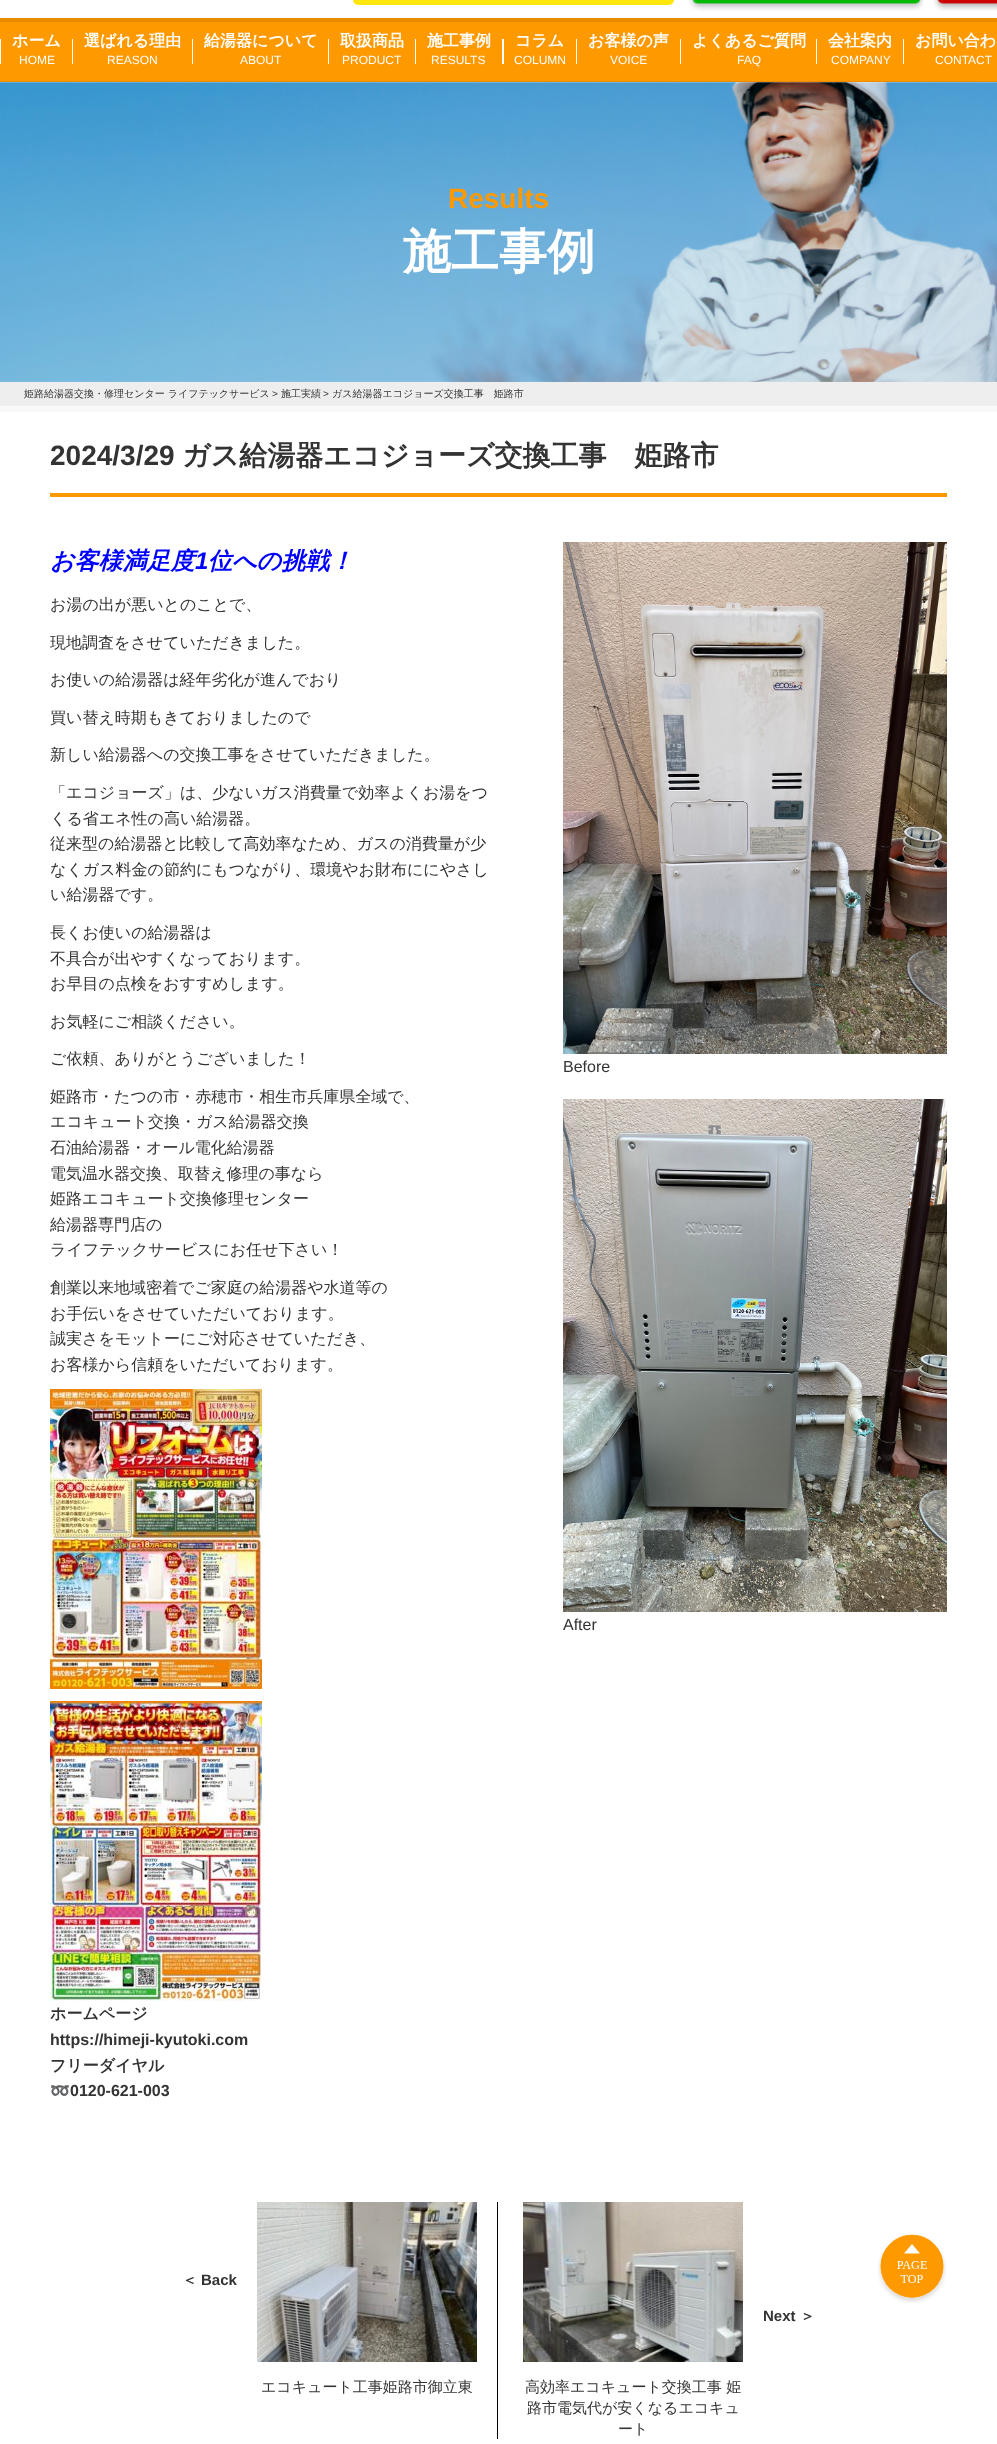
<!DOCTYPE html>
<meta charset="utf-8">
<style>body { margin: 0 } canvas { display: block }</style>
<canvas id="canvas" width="997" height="2444"></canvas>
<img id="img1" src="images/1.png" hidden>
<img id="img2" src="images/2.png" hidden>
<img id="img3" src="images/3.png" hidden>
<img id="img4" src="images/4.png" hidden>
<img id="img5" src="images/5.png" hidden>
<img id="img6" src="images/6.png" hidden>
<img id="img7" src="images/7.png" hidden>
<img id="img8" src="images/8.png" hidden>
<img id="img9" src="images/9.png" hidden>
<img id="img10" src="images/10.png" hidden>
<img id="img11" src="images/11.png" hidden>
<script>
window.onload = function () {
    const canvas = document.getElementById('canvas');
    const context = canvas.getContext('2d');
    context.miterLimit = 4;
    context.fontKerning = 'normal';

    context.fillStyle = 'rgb(255, 255, 255)';
    context.fillRect(0, 0, 997, 2444);
    context.drawImage(document.getElementById('img1'), 353, 0, 321, 5);
    context.drawImage(document.getElementById('img2'), 689, 0, 235, 11);
    context.drawImage(document.getElementById('img3'), 933, 0, 64, 11);
    context.fillStyle = 'rgb(255, 153, 0)';
    context.fillRect(0, 22, 997, 59);
    context.fillStyle = 'rgb(234, 140, 0)';
    context.fillRect(0, 18, 997, 4);
    context.fillRect(0, 81, 997, 1);
    context.fillStyle = 'rgb(255, 255, 255)';
    context.fillRect(0, 39, 1, 25);
    context.fillRect(72, 39, 1, 25);
    context.fillRect(192, 39, 1, 25);
    context.fillRect(328, 39, 1, 25);
    context.fillRect(415, 39, 1, 25);
    context.fillRect(502, 39, 2, 25);
    context.fillRect(576, 39, 1, 25);
    context.fillRect(680, 39, 1, 25);
    context.fillRect(816, 39, 1, 25);
    context.fillRect(903, 39, 1, 25);
    context.drawImage(document.getElementById('img4'), 0, 82, 997, 300);
    context.fillStyle = 'rgb(238, 238, 238)';
    context.fillRect(0, 382, 997, 24);
    context.fillStyle = 'rgb(249, 249, 249)';
    context.fillRect(0, 406, 997, 6);
    context.fillStyle = 'rgb(255, 153, 0)';
    context.fillRect(50, 493, 897, 4);
    context.drawImage(document.getElementById('img5'), 50, 1389, 212, 300);
    context.drawImage(document.getElementById('img6'), 50, 1701, 212, 300);
    context.drawImage(document.getElementById('img7'), 563, 542, 384, 512);
    context.drawImage(document.getElementById('img8'), 563, 1099, 384, 513);
    context.fillStyle = 'rgb(0, 0, 0)';
    context.fillRect(497, 2202, 1, 237);
    context.drawImage(document.getElementById('img9'), 257, 2202, 220, 160);
    context.drawImage(document.getElementById('img10'), 523, 2202, 220, 160);
    context.drawImage(document.getElementById('img11'), 878, 2234, 68, 69);
    context.font = 'bold 16px WenQuanYi Zen Hei';
    context.fillStyle = 'rgb(255, 255, 255)';
    context.fillText('ホーム', 12, 46);
    context.font = '12px Liberation Sans';
    context.fillText('HOME', 19, 64);
    context.font = 'bold 16px WenQuanYi Zen Hei';
    context.fillText('選ばれる理由', 84, 46);
    context.font = '12px Liberation Sans';
    context.fillText('REASON', 107, 64);
    context.font = 'bold 16px WenQuanYi Zen Hei';
    context.fillText('給湯器について', 204, 46);
    context.font = '12px Liberation Sans';
    context.fillText('ABOUT', 240, 64);
    context.font = 'bold 16px WenQuanYi Zen Hei';
    context.fillText('取扱商品', 340, 46);
    context.font = '12px Liberation Sans';
    context.fillText('PRODUCT', 342, 64);
    context.font = 'bold 16px WenQuanYi Zen Hei';
    context.fillText('施工事例', 427, 46);
    context.font = '12px Liberation Sans';
    context.fillText('RESULTS', 431, 64);
    context.font = 'bold 16px WenQuanYi Zen Hei';
    context.fillText('コラム', 515, 46);
    context.font = '12px Liberation Sans';
    context.fillText('COLUMN', 514, 64);
    context.font = 'bold 16px WenQuanYi Zen Hei';
    context.fillText('お客様の声', 588, 46);
    context.font = '12px Liberation Sans';
    context.fillText('VOICE', 610, 64);
    context.font = 'bold 16px WenQuanYi Zen Hei';
    context.fillText('よくあるご質問', 692, 46);
    context.font = '12px Liberation Sans';
    context.fillText('FAQ', 737, 64);
    context.font = 'bold 16px WenQuanYi Zen Hei';
    context.fillText('会社案内', 828, 46);
    context.font = '12px Liberation Sans';
    context.fillText('COMPANY', 831, 64);
    context.font = 'bold 16px WenQuanYi Zen Hei';
    context.fillText('お問い合わ', 915, 46);
    context.font = '12px Liberation Sans';
    context.fillText('CONTACT', 935, 64);
    context.font = 'bold 28px Liberation Sans';
    context.fillStyle = 'rgb(255, 153, 0)';
    context.fillText('Results', 448, 208);
    context.font = 'bold 48px WenQuanYi Zen Hei';
    context.fillStyle = 'rgb(255, 255, 255)';
    context.fillText('施工事例', 403, 268);
    context.font = '500 10px WenQuanYi Zen Hei';
    context.fillStyle = 'rgb(51, 51, 51)';
    context.fillText('姫路給湯器交換・修理センター ライフテックサービス', 24, 397);
    context.font = '10px Liberation Sans';
    context.fillText('>', 272, 397);
    context.font = '500 10px WenQuanYi Zen Hei';
    context.fillText('施工実績', 281, 397);
    context.font = '10px Liberation Sans';
    context.fillText('>', 323, 397);
    context.font = '500 10px WenQuanYi Zen Hei';
    context.fillText('ガス給湯器エコジョーズ交換工事　姫路市', 332, 397);
    context.font = 'bold 28px Liberation Sans';
    context.fillText('2024/3/29', 50, 465);
    context.font = 'bold 28px WenQuanYi Zen Hei';
    context.fillText('ガス給湯器エコジョーズ交換工事　姫路市', 182, 465);
    context.font = 'italic bold 24px WenQuanYi Zen Hei';
    context.fillStyle = 'rgb(0, 0, 255)';
    context.fillText('お客様満足度', 50, 569);
    context.font = 'italic bold 24px Liberation Sans';
    context.fillText('1', 195, 569);
    context.font = 'italic bold 24px WenQuanYi Zen Hei';
    context.fillText('位への挑戦！', 208, 569);
    context.font = '500 16px WenQuanYi Zen Hei';
    context.fillStyle = 'rgb(51, 51, 51)';
    context.fillText('お湯の出が悪いとのことで、', 50, 610);
    context.fillText('現地調査をさせていただきました。', 50, 648);
    context.fillText('お使いの給湯器は経年劣化が進んでおり', 50, 685);
    context.fillText('買い替え時期もきておりましたので', 50, 723);
    context.fillText('新しい給湯器への交換工事をさせていただきました。', 50, 760);
    context.fillText('「エコジョーズ」は、少ないガス消費量で効率よくお湯をつ', 50, 798);
    context.fillText('くる省エネ性の高い給湯器。', 50, 824);
    context.fillText('従来型の給湯器と比較して高効率なため、ガスの消費量が少', 50, 849);
    context.fillText('なくガス料金の節約にもつながり、環境やお財布ににやさし', 50, 875);
    context.fillText('い給湯器です。', 50, 900);
    context.fillText('長くお使いの給湯器は', 50, 938);
    context.fillText('不具合が出やすくなっております。', 50, 964);
    context.fillText('お早目の点検をおすすめします。', 50, 989);
    context.fillText('お気軽にご相談ください。', 50, 1027);
    context.fillText('ご依頼、ありがとうございました！', 50, 1064);
    context.fillText('姫路市・たつの市・赤穂市・相生市兵庫県全域で、', 50, 1102);
    context.fillText('エコキュート交換・ガス給湯器交換', 50, 1127);
    context.fillText('石油給湯器・オール電化給湯器', 50, 1153);
    context.fillText('電気温水器交換、取替え修理の事なら', 50, 1179);
    context.fillText('姫路エコキュート交換修理センター', 50, 1204);
    context.fillText('給湯器専門店の', 50, 1230);
    context.fillText('ライフテックサービスにお任せ下さい！', 50, 1255);
    context.fillText('創業以来地域密着でご家庭の給湯器や水道等の', 50, 1293);
    context.fillText('お手伝いをさせていただいております。', 50, 1319);
    context.fillText('誠実さをモットーにご対応させていただき、', 50, 1344);
    context.fillText('お客様から信頼をいただいております。', 50, 1370);
    context.font = 'bold 16px WenQuanYi Zen Hei';
    context.fillText('ホームページ', 50, 2019);
    context.font = 'bold 16px Liberation Sans';
    context.fillText('https://himeji-kyutoki.com', 50, 2045);
    context.font = 'bold 16px WenQuanYi Zen Hei';
    context.fillText('フリーダイヤル', 50, 2071);
    context.font = 'bold 16px Noto Color Emoji';
    context.fillText('➿', 50, 2096);
    context.font = 'bold 16px Liberation Sans';
    context.fillText('0120-621-003', 70, 2096);
    context.font = '16px Liberation Sans';
    context.fillText('Before', 563, 1072);
    context.fillText('After', 563, 1630);
    context.font = 'bold 15px WenQuanYi Zen Hei';
    context.fillText('＜', 182, 2285);
    context.font = 'bold 15px Liberation Sans';
    context.fillText('Back', 201, 2285);
    context.font = '500 15px WenQuanYi Zen Hei';
    context.fillText('エコキュート工事姫路市御立東', 261, 2392);
    context.font = 'bold 15px Liberation Sans';
    context.fillText('Next', 763, 2321);
    context.font = 'bold 15px WenQuanYi Zen Hei';
    context.fillText('＞', 800, 2321);
    context.font = '500 15px WenQuanYi Zen Hei';
    context.fillText('高効率エコキュート交換工事 姫', 525, 2392);
    context.fillText('路市電気代が安くなるエコキュ', 527, 2413);
    context.fillText('ート', 618, 2434);
};
</script>
